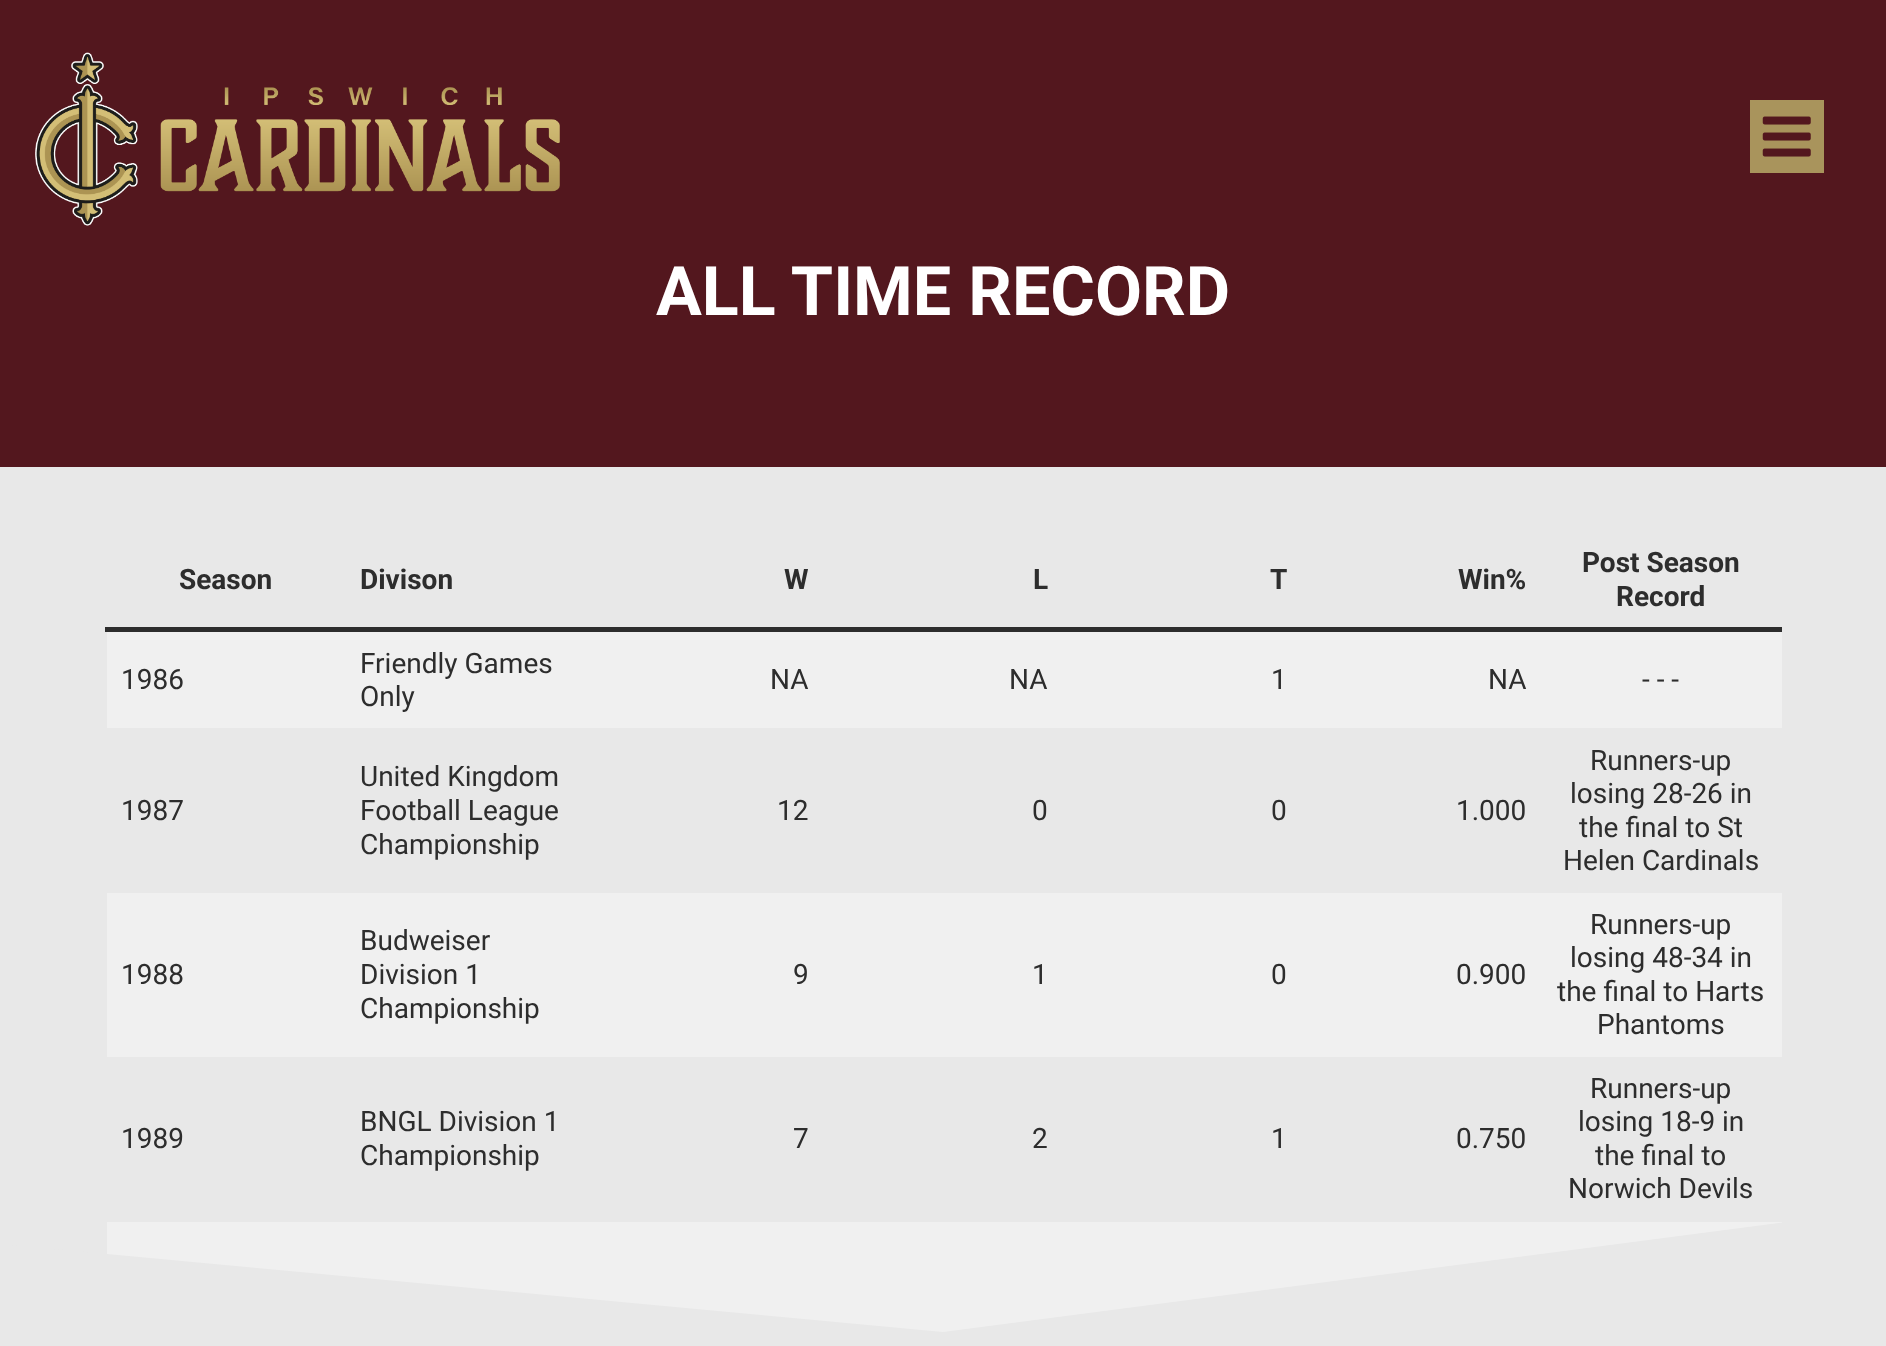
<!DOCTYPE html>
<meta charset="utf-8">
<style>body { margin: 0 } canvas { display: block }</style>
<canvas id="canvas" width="1886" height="1346"></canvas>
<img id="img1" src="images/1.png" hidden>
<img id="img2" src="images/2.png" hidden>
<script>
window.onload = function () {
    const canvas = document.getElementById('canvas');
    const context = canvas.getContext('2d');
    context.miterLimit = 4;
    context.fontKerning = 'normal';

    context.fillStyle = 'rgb(83, 23, 30)';
    context.fillRect(0, 0, 1886, 1346);
    context.drawImage(document.getElementById('img1'), 35, 52, 525, 174);
    context.fillStyle = 'rgb(169, 148, 92)';
    context.fillRect(1750, 100, 74, 73);
    context.drawImage(document.getElementById('img2'), 1762, 116, 49, 41);
    context.fillStyle = 'rgb(232, 232, 232)';
    context.fillRect(0, 467, 1886, 787);
    context.fillStyle = 'rgb(240, 240, 240)';
    context.fillRect(107, 1222, 1675, 110);
    context.fillStyle = 'rgb(232, 232, 232)';
    context.beginPath();
    context.moveTo(0, 1244);
    context.lineTo(943, 1332);
    context.lineTo(1886, 1209);
    context.lineTo(1886, 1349);
    context.lineTo(0, 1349);
    context.closePath();
    context.fill();
    context.fillStyle = 'rgb(45, 45, 45)';
    context.fillRect(105, 627, 1677, 5);
    context.fillStyle = 'rgb(240, 240, 240)';
    context.fillRect(107, 632, 1675, 96);
    context.fillRect(107, 893, 1675, 164);
    context.font = 'bold 68.25px Roboto';
    context.fillStyle = 'rgb(255, 255, 255)';
    context.fillText('ALL TIME RECORD', 656, 315);
    context.font = 'bold 28px Roboto';
    context.fillStyle = 'rgb(45, 45, 45)';
    context.fillText('Season', 179, 589);
    context.fillText('Divison', 360, 589);
    context.fillText('W', 784, 589);
    context.fillText('L', 1033, 589);
    context.fillText('T', 1270, 589);
    context.fillText('Win%', 1458, 589);
    context.fillText('Post Season', 1582, 572);
    context.fillText('Record', 1616, 606);
    context.font = '28px Roboto';
    context.fillText('1986', 121, 689);
    context.fillText('Friendly Games', 360, 673);
    context.fillText('Only', 360, 706);
    context.fillText('NA', 770, 689);
    context.fillText('NA', 1009, 689);
    context.fillText('1', 1271, 689);
    context.fillText('NA', 1488, 689);
    context.fillText('- - -', 1642, 689);
    context.fillText('1987', 121, 820);
    context.fillText('United Kingdom', 360, 786);
    context.fillText('Football League', 360, 820);
    context.fillText('Championship', 360, 854);
    context.fillText('12', 777, 820);
    context.fillText('0', 1032, 820);
    context.fillText('0', 1271, 820);
    context.fillText('1.000', 1456, 820);
    context.fillText('Runners-up', 1590, 770);
    context.fillText('losing 28-26 in', 1570, 803);
    context.fillText('the final to St', 1579, 837);
    context.fillText('Helen Cardinals', 1563, 870);
    context.fillText('1988', 121, 984);
    context.fillText('Budweiser', 360, 950);
    context.fillText('Division 1', 360, 984);
    context.fillText('Championship', 360, 1018);
    context.fillText('9', 793, 984);
    context.fillText('1', 1032, 984);
    context.fillText('0', 1271, 984);
    context.fillText('0.900', 1456, 984);
    context.fillText('Runners-up', 1590, 934);
    context.fillText('losing 48-34 in', 1570, 967);
    context.fillText('the final to Harts', 1557, 1001);
    context.fillText('Phantoms', 1597, 1034);
    context.fillText('1989', 121, 1148);
    context.fillText('BNGL Division 1', 360, 1131);
    context.fillText('Championship', 360, 1165);
    context.fillText('7', 793, 1148);
    context.fillText('2', 1032, 1148);
    context.fillText('1', 1271, 1148);
    context.fillText('0.750', 1456, 1148);
    context.fillText('Runners-up', 1590, 1098);
    context.fillText('losing 18-9 in', 1578, 1131);
    context.fillText('the final to', 1595, 1165);
    context.fillText('Norwich Devils', 1568, 1198);
};
</script>
